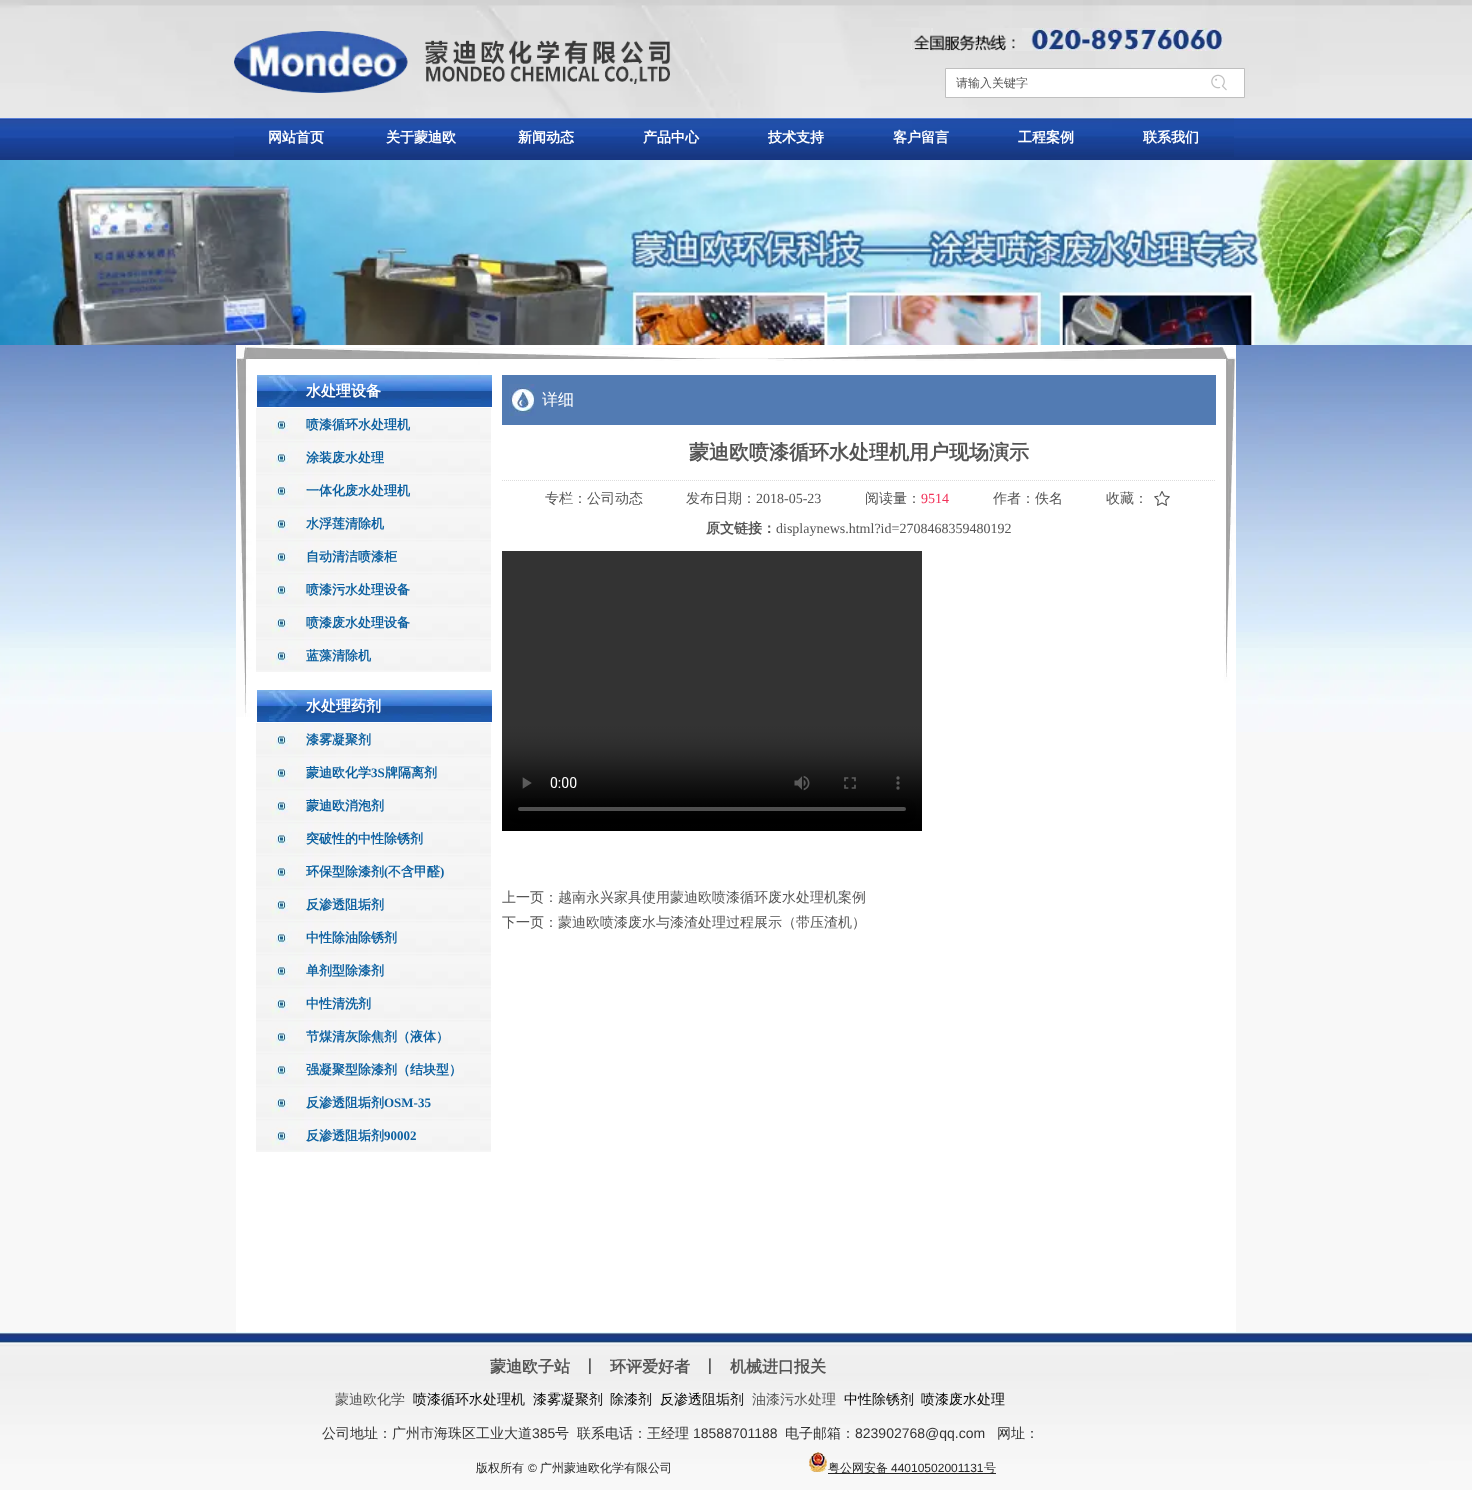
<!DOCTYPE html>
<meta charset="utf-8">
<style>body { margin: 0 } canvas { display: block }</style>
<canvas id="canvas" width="1472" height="1501"></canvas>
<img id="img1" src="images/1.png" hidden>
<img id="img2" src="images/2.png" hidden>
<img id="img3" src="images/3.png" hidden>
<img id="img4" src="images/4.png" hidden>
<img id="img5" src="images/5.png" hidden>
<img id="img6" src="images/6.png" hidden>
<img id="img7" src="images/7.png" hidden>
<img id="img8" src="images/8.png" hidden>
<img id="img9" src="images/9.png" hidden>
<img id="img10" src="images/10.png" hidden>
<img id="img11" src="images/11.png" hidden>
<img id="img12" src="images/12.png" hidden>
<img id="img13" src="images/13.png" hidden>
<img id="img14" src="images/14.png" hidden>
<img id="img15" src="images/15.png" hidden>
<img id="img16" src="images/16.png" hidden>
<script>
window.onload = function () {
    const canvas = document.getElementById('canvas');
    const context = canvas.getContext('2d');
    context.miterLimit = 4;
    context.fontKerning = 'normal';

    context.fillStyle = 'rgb(255, 255, 255)';
    context.fillRect(0, 0, 1472, 1501);
    context.drawImage(document.getElementById('img1'), 0, 0, 1472, 118);
    context.drawImage(document.getElementById('img2'), 234, 31, 436, 62);
    context.drawImage(document.getElementById('img3'), 911, 28, 312, 23);
    context.beginPath();
    context.rect(945.5, 68.5, 299, 29);
    context.fill();
    context.strokeStyle = 'rgb(191, 191, 191)';
    context.stroke();
    context.drawImage(document.getElementById('img4'), 1211, 74, 16, 17);
    context.drawImage(document.getElementById('img5'), 0, 118, 1472, 42);
    context.drawImage(document.getElementById('img6'), 234, 118, 1000, 39);
    context.fillStyle = 'rgb(248, 248, 248)';
    context.fillRect(0, 732, 1472, 600);
    context.drawImage(document.getElementById('img7'), 0, 345, 1472, 387);
    context.drawImage(document.getElementById('img8'), 0, 160, 1472, 185);
    context.fillStyle = 'rgb(255, 255, 255)';
    context.fillRect(236, 717, 1000, 615);
    context.drawImage(document.getElementById('img9'), 236, 345, 1000, 372);
    context.drawImage(document.getElementById('img10'), 257, 375, 235, 32);
    context.drawImage(document.getElementById('img11'), 256, 408, 235, 33);
    context.drawImage(document.getElementById('img11'), 256, 441, 235, 33);
    context.drawImage(document.getElementById('img11'), 256, 474, 235, 33);
    context.drawImage(document.getElementById('img11'), 256, 507, 235, 33);
    context.drawImage(document.getElementById('img11'), 256, 540, 235, 33);
    context.drawImage(document.getElementById('img11'), 256, 573, 235, 33);
    context.drawImage(document.getElementById('img11'), 256, 606, 235, 33);
    context.drawImage(document.getElementById('img11'), 256, 639, 235, 33);
    context.drawImage(document.getElementById('img10'), 257, 690, 235, 32);
    context.drawImage(document.getElementById('img11'), 256, 723, 235, 33);
    context.drawImage(document.getElementById('img11'), 256, 756, 235, 33);
    context.drawImage(document.getElementById('img11'), 256, 789, 235, 33);
    context.drawImage(document.getElementById('img11'), 256, 822, 235, 33);
    context.drawImage(document.getElementById('img11'), 256, 855, 235, 33);
    context.drawImage(document.getElementById('img11'), 256, 888, 235, 33);
    context.drawImage(document.getElementById('img11'), 256, 921, 235, 33);
    context.drawImage(document.getElementById('img11'), 256, 954, 235, 33);
    context.drawImage(document.getElementById('img11'), 256, 987, 235, 33);
    context.drawImage(document.getElementById('img11'), 256, 1020, 235, 33);
    context.drawImage(document.getElementById('img11'), 256, 1053, 235, 33);
    context.drawImage(document.getElementById('img11'), 256, 1086, 235, 33);
    context.drawImage(document.getElementById('img11'), 256, 1119, 235, 33);
    context.fillStyle = 'rgb(82, 123, 179)';
    context.fillRect(502, 375, 714, 50);
    context.drawImage(document.getElementById('img12'), 509, 384, 27, 32);
    context.beginPath();
    context.moveTo(502, 480.5);
    context.lineTo(1216, 480.5);
    context.strokeStyle = 'rgb(221, 221, 221)';
    context.setLineDash([1, 1]);
    context.stroke();
    context.drawImage(document.getElementById('img13'), 1154, 491, 16, 15);
    context.drawImage(document.getElementById('img14'), 502, 551, 420, 280);
    context.drawImage(document.getElementById('img15'), 0, 1332, 1472, 158);
    context.drawImage(document.getElementById('img16'), 809, 1452, 18, 20);
    context.fillStyle = 'rgb(38, 38, 38)';
    context.fillRect(828, 1473, 168, 1);
    context.font = '500 12px WenQuanYi Zen Hei';
    context.fillStyle = 'rgb(85, 85, 85)';
    context.fillText('请输入关键字', 956, 87);
    context.font = 'bold 14px WenQuanYi Zen Hei';
    context.fillStyle = 'rgb(255, 255, 255)';
    context.fillText('网站首页', 268, 142);
    context.fillText('关于蒙迪欧', 386, 142);
    context.fillText('新闻动态', 518, 142);
    context.fillText('产品中心', 643, 142);
    context.fillText('技术支持', 768, 142);
    context.fillText('客户留言', 893, 142);
    context.fillText('工程案例', 1018, 142);
    context.fillText('联系我们', 1143, 142);
    context.font = 'bold 15px WenQuanYi Zen Hei';
    context.fillText('水处理设备', 306, 396);
    context.font = 'bold 13px WenQuanYi Zen Hei';
    context.fillStyle = 'rgb(13, 97, 161)';
    context.fillText('喷漆循环水处理机', 306, 429);
    context.fillText('涂装废水处理', 306, 462);
    context.fillText('一体化废水处理机', 306, 495);
    context.fillText('水浮莲清除机', 306, 528);
    context.fillText('自动清洁喷漆柜', 306, 561);
    context.fillText('喷漆污水处理设备', 306, 594);
    context.fillText('喷漆废水处理设备', 306, 627);
    context.fillText('蓝藻清除机', 306, 660);
    context.font = 'bold 15px WenQuanYi Zen Hei';
    context.fillStyle = 'rgb(255, 255, 255)';
    context.fillText('水处理药剂', 306, 711);
    context.font = 'bold 13px WenQuanYi Zen Hei';
    context.fillStyle = 'rgb(13, 97, 161)';
    context.fillText('漆雾凝聚剂', 306, 744);
    context.fillText('蒙迪欧化学', 306, 777);
    context.font = 'bold 13px Liberation Serif';
    context.fillText('3S', 371, 777);
    context.font = 'bold 13px WenQuanYi Zen Hei';
    context.fillText('牌隔离剂', 385, 777);
    context.fillText('蒙迪欧消泡剂', 306, 810);
    context.fillText('突破性的中性除锈剂', 306, 843);
    context.fillText('环保型除漆剂', 306, 876);
    context.font = 'bold 13px Liberation Serif';
    context.fillText('(', 384, 876);
    context.font = 'bold 13px WenQuanYi Zen Hei';
    context.fillText('不含甲醛', 388, 876);
    context.font = 'bold 13px Liberation Serif';
    context.fillText(')', 440, 876);
    context.font = 'bold 13px WenQuanYi Zen Hei';
    context.fillText('反渗透阻垢剂', 306, 909);
    context.fillText('中性除油除锈剂', 306, 942);
    context.fillText('单剂型除漆剂', 306, 975);
    context.fillText('中性清洗剂', 306, 1008);
    context.fillText('节煤清灰除焦剂（液体）', 306, 1041);
    context.fillText('强凝聚型除漆剂（结块型）', 306, 1074);
    context.fillText('反渗透阻垢剂', 306, 1107);
    context.font = 'bold 13px Liberation Serif';
    context.fillText('OSM-35', 384, 1107);
    context.font = 'bold 13px WenQuanYi Zen Hei';
    context.fillText('反渗透阻垢剂', 306, 1140);
    context.font = 'bold 13px Liberation Serif';
    context.fillText('90002', 384, 1140);
    context.font = '500 16px WenQuanYi Zen Hei';
    context.fillStyle = 'rgb(255, 255, 255)';
    context.fillText('详细', 542, 405);
    context.font = 'bold 20px WenQuanYi Zen Hei';
    context.fillStyle = 'rgb(85, 85, 85)';
    context.fillText('蒙迪欧喷漆循环水处理机用户现场演示', 689, 459);
    context.font = '500 14px WenQuanYi Zen Hei';
    context.fillText('专栏：公司动态', 545, 503);
    context.fillText('发布日期：', 686, 503);
    context.font = '14px Liberation Serif';
    context.fillText('2018-05-23', 756, 503);
    context.font = '500 14px WenQuanYi Zen Hei';
    context.fillText('阅读量：', 865, 503);
    context.font = '14px Liberation Serif';
    context.fillStyle = 'rgb(242, 50, 89)';
    context.fillText('9514', 921, 503);
    context.font = '500 14px WenQuanYi Zen Hei';
    context.fillStyle = 'rgb(85, 85, 85)';
    context.fillText('作者：佚名', 993, 503);
    context.fillText('收藏：', 1106, 503);
    context.font = 'bold 14px WenQuanYi Zen Hei';
    context.fillText('原文链接：', 706, 533);
    context.font = '14px Liberation Serif';
    context.fillText('displaynews.html?id=2708468359480192', 776, 533);
    context.font = '500 14px WenQuanYi Zen Hei';
    context.fillText('上一页：越南永兴家具使用蒙迪欧喷漆循环废水处理机案例', 502, 902);
    context.fillText('下一页：蒙迪欧喷漆废水与漆渣处理过程展示（带压渣机）', 502, 927);
    context.font = 'bold 16px WenQuanYi Zen Hei';
    context.fillText('蒙迪欧子站', 490, 1372);
    context.fillText('丨', 582, 1372);
    context.fillText('环评爱好者', 610, 1372);
    context.fillText('丨', 702, 1372);
    context.fillText('机械进口报关', 730, 1372);
    context.font = '500 14px WenQuanYi Zen Hei';
    context.fillText('蒙迪欧化学', 335, 1404);
    context.fillStyle = 'rgb(0, 0, 0)';
    context.fillText('喷漆循环水处理机', 413, 1404);
    context.fillText('漆雾凝聚剂', 533, 1404);
    context.fillText('除漆剂', 610, 1404);
    context.fillText('反渗透阻垢剂', 660, 1404);
    context.fillStyle = 'rgb(85, 85, 85)';
    context.fillText('油漆污水处理', 752, 1404);
    context.fillStyle = 'rgb(0, 0, 0)';
    context.fillText('中性除锈剂', 844, 1404);
    context.fillText('喷漆废水处理', 921, 1404);
    context.fillStyle = 'rgb(51, 51, 51)';
    context.fillText('公司地址：广州市海珠区工业大道', 322, 1438);
    context.font = '14px Liberation Sans';
    context.fillText('385', 532, 1438);
    context.font = '500 14px WenQuanYi Zen Hei';
    context.fillText('号', 555, 1438);
    context.fillText('联系电话：王经理', 577, 1438);
    context.font = '14px Liberation Sans';
    context.fillText('18588701188', 693, 1438);
    context.font = '500 14px WenQuanYi Zen Hei';
    context.fillText('电子邮箱：', 785, 1438);
    context.font = '14px Liberation Sans';
    context.fillText('823902768@qq.com', 855, 1438);
    context.font = '500 14px WenQuanYi Zen Hei';
    context.fillText('网址：', 997, 1438);
    context.font = '500 12px WenQuanYi Zen Hei';
    context.fillStyle = 'rgb(38, 38, 38)';
    context.fillText('版权所有', 476, 1472);
    context.font = '12px Liberation Sans';
    context.fillText('©', 528, 1472);
    context.font = '500 12px WenQuanYi Zen Hei';
    context.fillText('广州蒙迪欧化学有限公司', 540, 1472);
    context.fillText('粤公网安备', 828, 1472);
    context.font = '12px Liberation Sans';
    context.fillText('44010502001131', 891, 1472);
    context.font = '500 12px WenQuanYi Zen Hei';
    context.fillText('号', 984, 1472);
};
</script>
